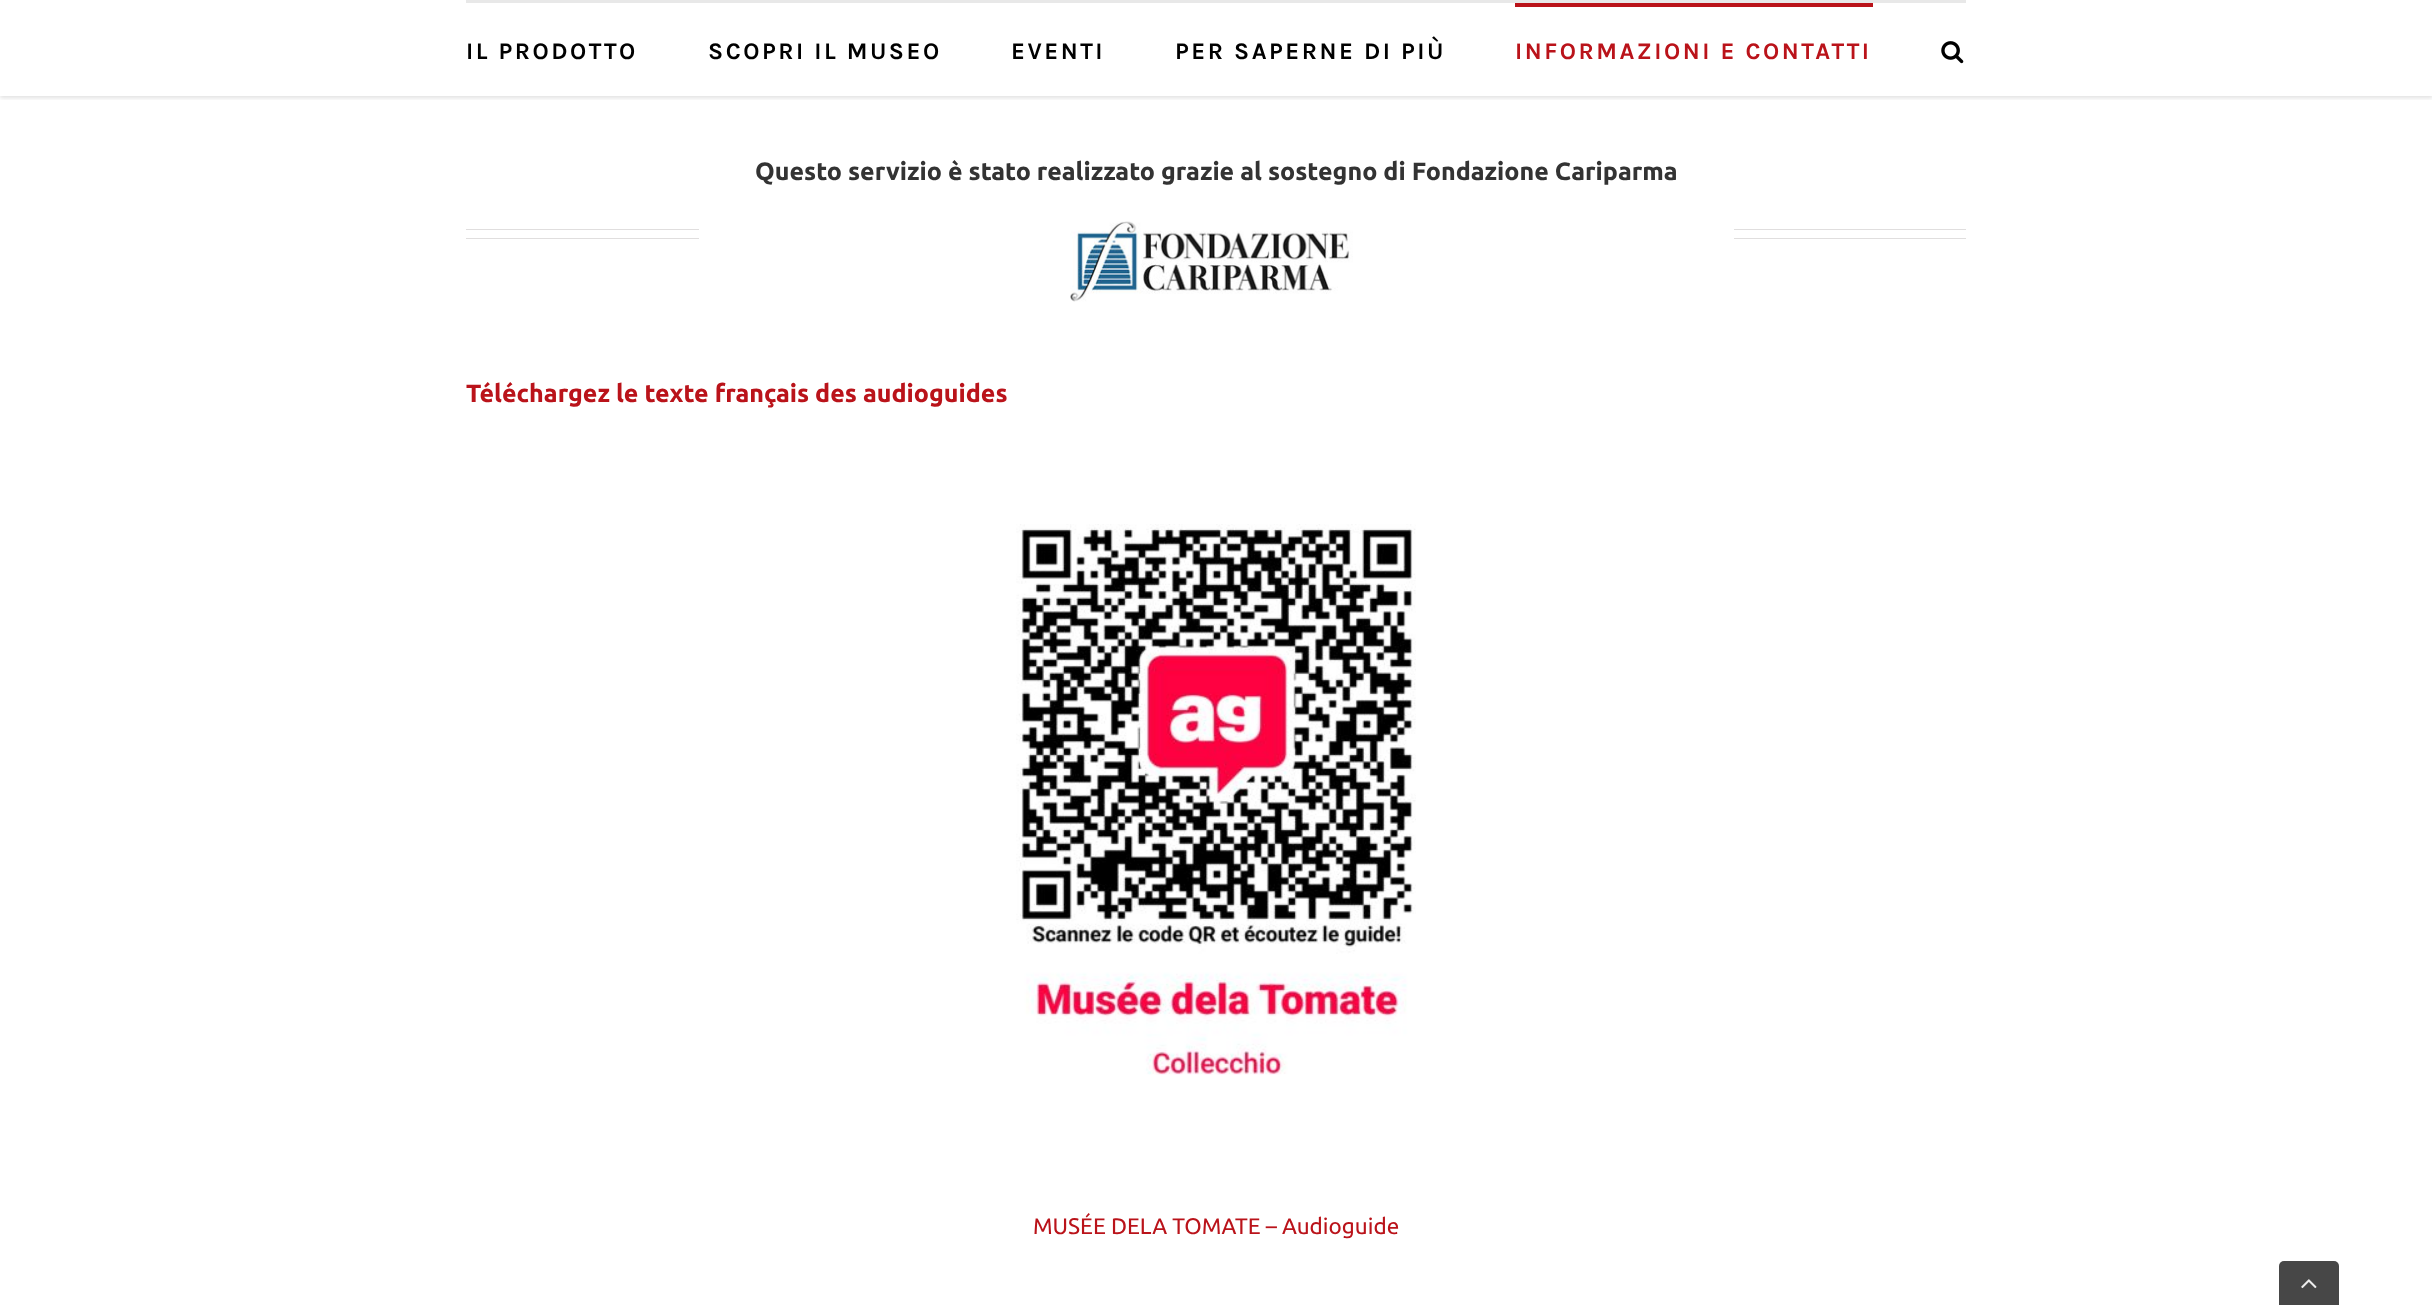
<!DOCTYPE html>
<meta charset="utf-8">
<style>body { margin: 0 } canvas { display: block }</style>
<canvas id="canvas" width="2432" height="1305"></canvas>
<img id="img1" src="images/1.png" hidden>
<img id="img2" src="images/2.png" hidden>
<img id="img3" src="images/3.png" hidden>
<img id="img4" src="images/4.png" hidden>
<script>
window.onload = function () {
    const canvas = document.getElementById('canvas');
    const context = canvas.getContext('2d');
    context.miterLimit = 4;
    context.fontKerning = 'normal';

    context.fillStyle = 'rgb(255, 255, 255)';
    context.fillRect(0, 0, 2432, 1305);
    context.save();
    context.beginPath();
    context.rect(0, 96, 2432, 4);
    context.clip();
    context.fillStyle = 'rgba(0, 0, 0, 0.12)';
    context.filter = 'blur(2px)';
    context.beginPath();
    context.rect(0, 1, 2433, 97);
    context.fill();
    context.filter = 'none';
    context.restore();
    context.fillStyle = 'rgb(232, 232, 232)';
    context.fillRect(466, 0, 1500, 3);
    context.fillStyle = 'rgb(186, 19, 26)';
    context.fillRect(1515, 3, 358, 4);
    context.drawImage(document.getElementById('img1'), 1941, 41, 23, 23);
    context.drawImage(document.getElementById('img2'), 1070, 221, 283, 81);
    context.fillStyle = 'rgb(224, 222, 222)';
    context.fillRect(466, 229, 233, 1);
    context.fillRect(466, 238, 233, 1);
    context.fillRect(1734, 229, 232, 1);
    context.fillRect(1734, 238, 232, 1);
    context.drawImage(document.getElementById('img3'), 1016, 524, 400, 551);
    context.fillStyle = 'rgb(71, 71, 71)';
    context.beginPath();
    context.roundRect(2279, 1261, 60, 44, [5, 5, 0, 0]);
    context.fill();
    context.drawImage(document.getElementById('img4'), 2301, 1279, 16, 10);
    context.letterSpacing = '2.5px';
    context.font = 'bold 23.75px Karla';
    context.fillStyle = 'rgb(0, 0, 0)';
    context.fillText('IL PRODOTTO', 466, 59);
    context.fillText('SCOPRI IL MUSEO', 708, 59);
    context.fillText('EVENTI', 1011, 59);
    context.fillText('PER SAPERNE DI PIÙ', 1175, 59);
    context.fillStyle = 'rgb(186, 19, 26)';
    context.fillText('INFORMAZIONI E CONTATTI', 1515, 59);
    context.letterSpacing = '0px';
    context.font = 'bold 25px Ubuntu';
    context.fillStyle = 'rgb(51, 51, 51)';
    context.fillText('Questo servizio è stato realizzato grazie al sostegno di Fondazione Cariparma', 755, 180);
    context.fillStyle = 'rgb(186, 19, 26)';
    context.fillText('Téléchargez le texte français des audioguides', 466, 402);
    context.font = '22.5px Ubuntu';
    context.fillText('MUSÉE DELA TOMATE – Audioguide', 1033, 1234);
};
</script>
